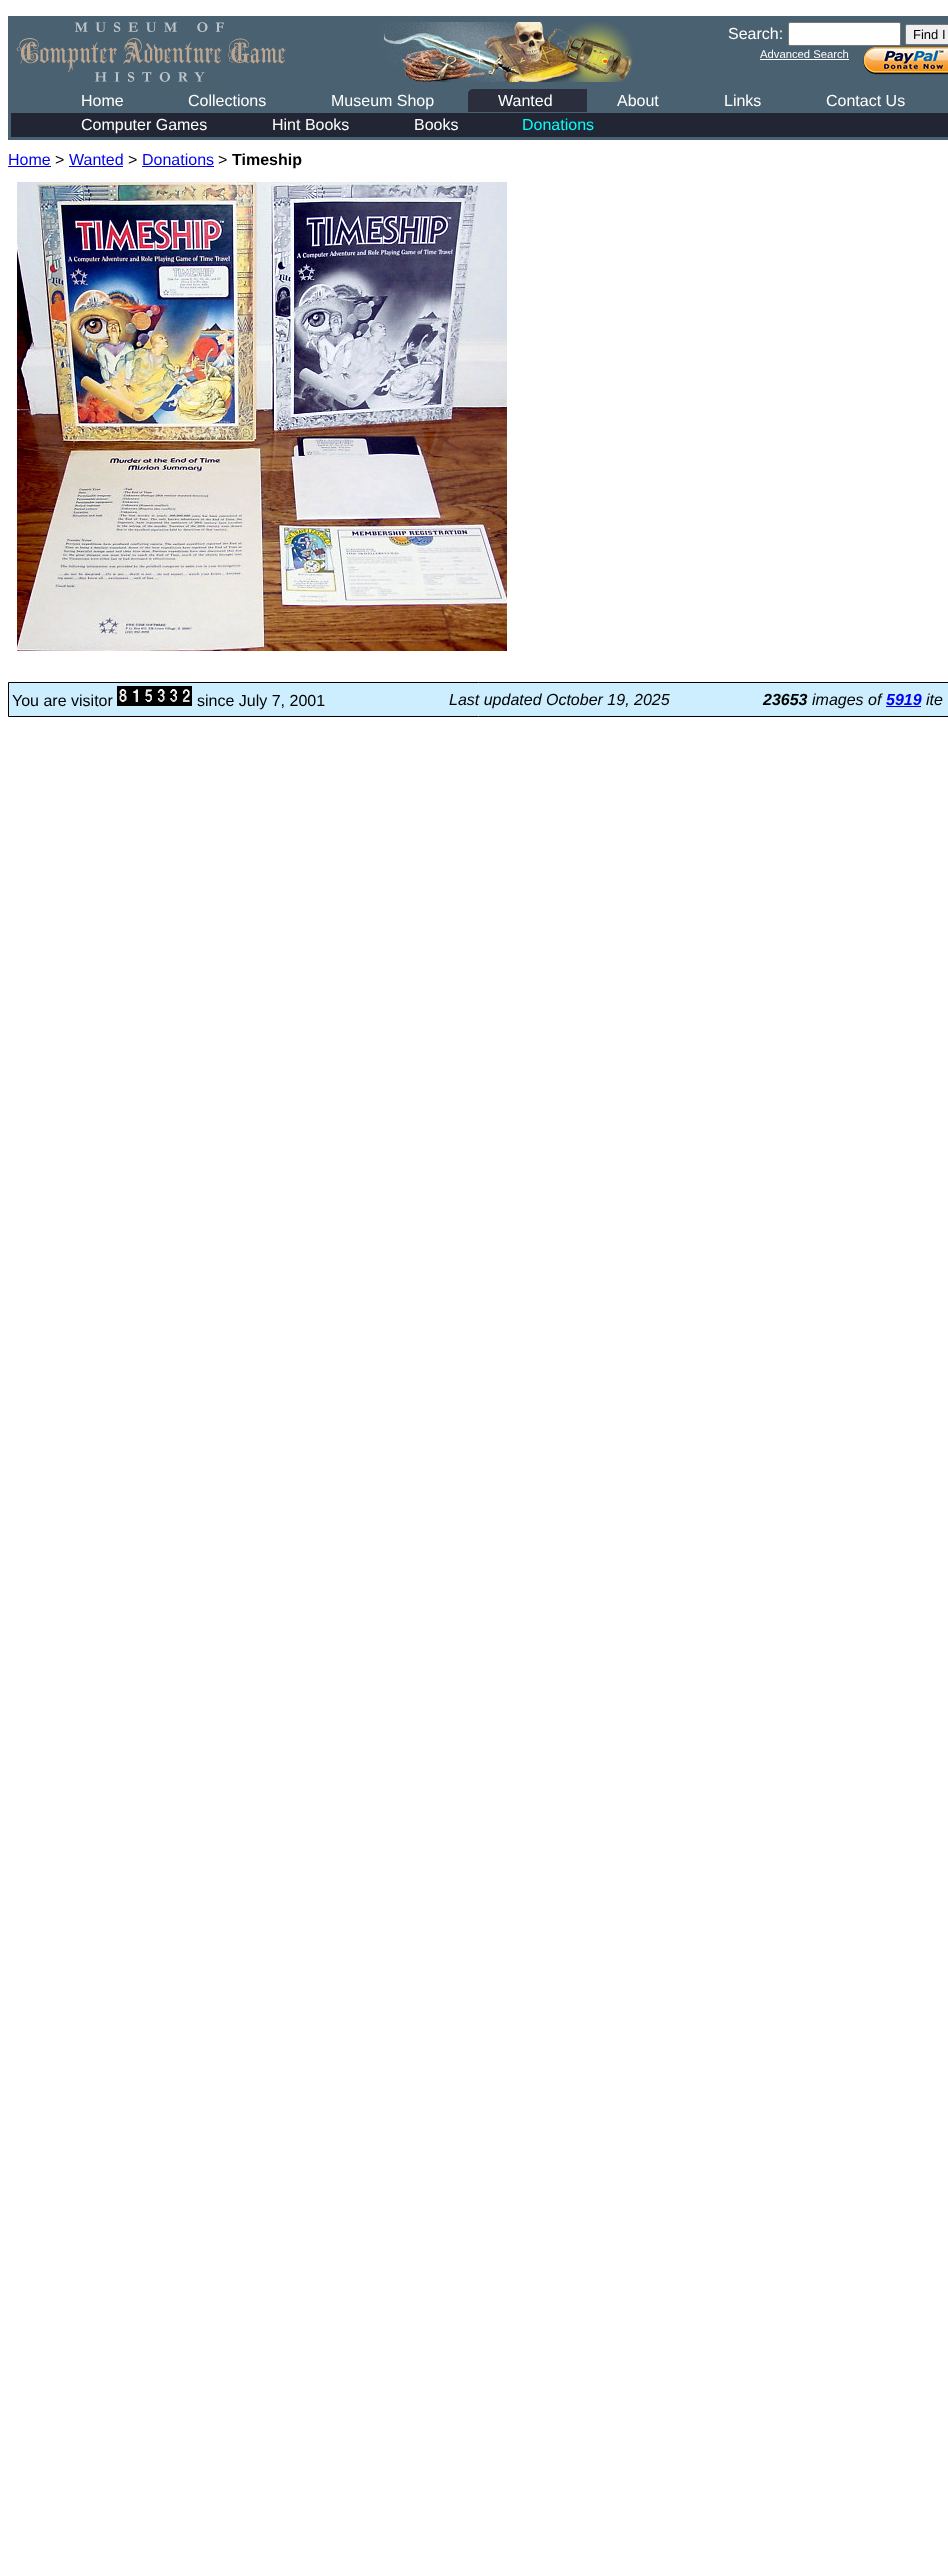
<!DOCTYPE html>
<meta charset="utf-8">
<style>body { margin: 0 } canvas { display: block }</style>
<canvas id="canvas" width="948" height="2549"></canvas>
<img id="img1" src="images/1.png" hidden>
<img id="img2" src="images/2.png" hidden>
<img id="img3" src="images/3.png" hidden>
<img id="img4" src="images/4.png" hidden>
<img id="img5" src="images/5.png" hidden>
<script>
window.onload = function () {
    const canvas = document.getElementById('canvas');
    const context = canvas.getContext('2d');
    context.miterLimit = 4;
    context.fontKerning = 'normal';

    context.fillStyle = 'rgb(255, 255, 255)';
    context.fillRect(0, 0, 948, 2549);
    context.fillStyle = 'rgb(74, 97, 113)';
    context.fillRect(8, 16, 940, 124);
    context.drawImage(document.getElementById('img1'), 16, 22, 617, 60);
    context.fillStyle = 'rgb(255, 255, 255)';
    context.beginPath();
    context.roundRect(788.5, 22.5, 112, 23, 1.5);
    context.fill();
    context.strokeStyle = 'rgb(118, 118, 118)';
    context.stroke();
    context.fillStyle = 'rgb(239, 239, 239)';
    context.beginPath();
    context.roundRect(905.5, 24.5, 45, 20, 1.5);
    context.fill();
    context.stroke();
    context.fillStyle = 'rgb(255, 255, 255)';
    context.fillRect(760, 59, 89, 1);
    context.drawImage(document.getElementById('img2'), 862, 47, 86, 28);
    context.drawImage(document.getElementById('img3'), 468, 89, 119, 23);
    context.fillStyle = 'rgb(34, 37, 51)';
    context.fillRect(11, 113, 937, 24);
    context.fillStyle = 'rgb(0, 0, 238)';
    context.fillRect(8, 166, 43, 1);
    context.fillRect(69, 166, 54, 1);
    context.fillRect(142, 166, 72, 1);
    context.drawImage(document.getElementById('img4'), 17, 182, 490, 469);
    context.fillStyle = 'rgb(204, 238, 255)';
    context.beginPath();
    context.rect(8.5, 682.5, 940, 34);
    context.fill();
    context.strokeStyle = 'rgb(0, 0, 0)';
    context.stroke();
    context.drawImage(document.getElementById('img5'), 117, 686, 75, 20);
    context.fillStyle = 'rgb(0, 0, 238)';
    context.fillRect(886, 706, 35, 1);
    context.font = '16px Liberation Sans';
    context.fillStyle = 'rgb(255, 255, 255)';
    context.fillText('Search:', 728, 39);
    context.font = '13px Liberation Sans';
    context.fillStyle = 'rgb(0, 0, 0)';
    context.fillText('Find I', 913, 39);
    context.font = '11.25px Liberation Sans';
    context.fillStyle = 'rgb(255, 255, 255)';
    context.fillText('Advanced Search', 760, 58);
    context.font = '16px Liberation Sans';
    context.fillText('Collections', 188, 106);
    context.fillText('Museum Shop', 331, 106);
    context.fillText('Home', 81, 106);
    context.fillText('Wanted', 498, 106);
    context.fillText('About', 617, 106);
    context.fillText('Links', 724, 106);
    context.fillText('Contact Us', 826, 106);
    context.fillText('Computer Games', 81, 130);
    context.fillText('Hint Books', 272, 130);
    context.fillText('Books', 414, 130);
    context.fillStyle = 'rgb(0, 255, 255)';
    context.fillText('Donations', 522, 130);
    context.fillStyle = 'rgb(0, 0, 238)';
    context.fillText('Home', 8, 165);
    context.fillStyle = 'rgb(0, 0, 0)';
    context.fillText('>', 55, 165);
    context.fillStyle = 'rgb(0, 0, 238)';
    context.fillText('Wanted', 69, 165);
    context.fillStyle = 'rgb(0, 0, 0)';
    context.fillText('>', 128, 165);
    context.fillStyle = 'rgb(0, 0, 238)';
    context.fillText('Donations', 142, 165);
    context.fillStyle = 'rgb(0, 0, 0)';
    context.fillText('>', 218, 165);
    context.font = 'bold 16px Liberation Sans';
    context.fillText('Timeship', 232, 165);
    context.font = '16px Liberation Sans';
    context.fillText('You are visitor', 12, 706);
    context.fillText('since July 7, 2001', 197, 706);
    context.font = 'italic 16px Liberation Sans';
    context.fillText('Last updated October 19, 2025', 449, 705);
    context.font = 'italic bold 16px Liberation Sans';
    context.fillText('23653', 763, 705);
    context.font = 'italic 16px Liberation Sans';
    context.fillText('images of', 812, 705);
    context.font = 'italic bold 16px Liberation Sans';
    context.fillStyle = 'rgb(0, 0, 238)';
    context.fillText('5919', 886, 705);
    context.font = 'italic 16px Liberation Sans';
    context.fillStyle = 'rgb(0, 0, 0)';
    context.fillText('ite', 926, 705);
};
</script>
